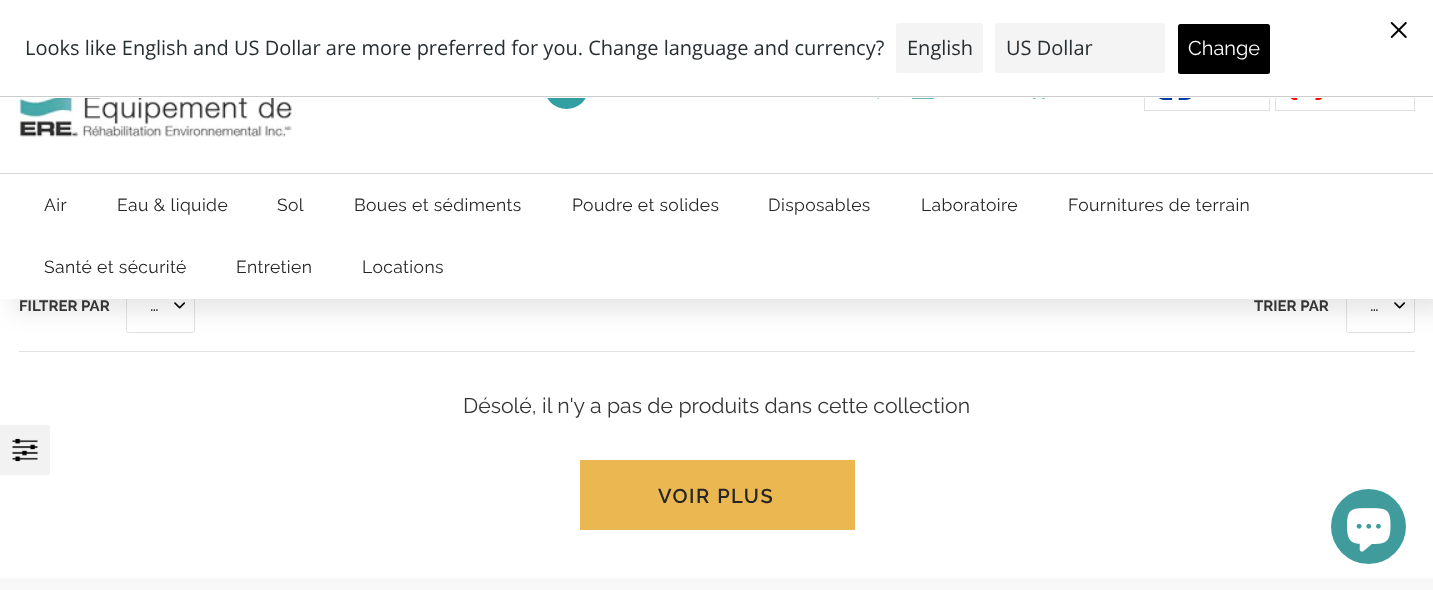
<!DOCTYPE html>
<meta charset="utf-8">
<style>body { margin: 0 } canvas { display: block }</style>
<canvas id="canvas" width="1433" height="590"></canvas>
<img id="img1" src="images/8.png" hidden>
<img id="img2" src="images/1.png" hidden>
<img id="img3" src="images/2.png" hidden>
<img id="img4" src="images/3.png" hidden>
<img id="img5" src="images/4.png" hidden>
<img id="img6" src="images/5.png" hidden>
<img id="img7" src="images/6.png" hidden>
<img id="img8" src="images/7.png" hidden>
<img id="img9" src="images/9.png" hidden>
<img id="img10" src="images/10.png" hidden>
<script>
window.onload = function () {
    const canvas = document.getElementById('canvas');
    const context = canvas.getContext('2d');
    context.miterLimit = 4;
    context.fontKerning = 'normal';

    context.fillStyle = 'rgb(255, 255, 255)';
    context.fillRect(0, 0, 1433, 590);
    context.drawImage(document.getElementById('img1'), 174, 302, 11, 7);
    context.beginPath();
    context.roundRect(126.5, 276.5, 68, 56, 2);
    context.strokeStyle = 'rgb(226, 226, 226)';
    context.stroke();
    context.drawImage(document.getElementById('img1'), 1394, 302, 11, 7);
    context.beginPath();
    context.roundRect(1346.5, 276.5, 68, 56, 2);
    context.stroke();
    context.fillStyle = 'rgba(0, 0, 0, 0.1)';
    context.filter = 'blur(12.5px)';
    context.beginPath();
    context.rect(13, 13, 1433, 298);
    context.fill();
    context.filter = 'none';
    context.fillStyle = 'rgb(255, 255, 255)';
    context.fillRect(0, 98, 1433, 201);
    context.fillStyle = 'rgb(50, 160, 162)';
    context.beginPath();
    context.arc(566.5, 86.5, 22.5, 0, 2 * Math.PI);
    context.fill();
    context.strokeStyle = 'rgb(224, 224, 224)';
    context.strokeRect(1144.5, 63.5, 125, 47);
    context.strokeRect(1275.5, 63.5, 139, 47);
    context.fillStyle = 'rgb(255, 255, 255)';
    context.fillRect(0, 0, 1433, 98);
    context.fillStyle = 'rgb(204, 204, 204)';
    context.fillRect(0, 96, 1433, 1);
    context.drawImage(document.getElementById('img2'), 1390, 22, 17, 16);
    context.fillStyle = 'rgb(244, 244, 244)';
    context.beginPath();
    context.roundRect(896, 23, 87, 50, 2.5);
    context.fill();
    context.beginPath();
    context.roundRect(995, 23, 170, 50, 2.5);
    context.fill();
    context.fillStyle = 'rgb(0, 0, 0)';
    context.beginPath();
    context.roundRect(1178, 24, 92, 50, 2.5);
    context.fill();
    context.drawImage(document.getElementById('img3'), 877, 98, 2, 1);
    context.drawImage(document.getElementById('img4'), 911, 98, 24, 1);
    context.drawImage(document.getElementById('img5'), 1032, 98, 14, 1);
    context.drawImage(document.getElementById('img6'), 1159, 98, 32, 2);
    context.drawImage(document.getElementById('img7'), 1290, 98, 33, 2);
    context.drawImage(document.getElementById('img8'), 18, 98, 274, 39);
    context.fillStyle = 'rgb(215, 215, 215)';
    context.fillRect(0, 173, 1433, 1);
    context.fillStyle = 'rgb(226, 226, 226)';
    context.fillRect(19, 351, 1396, 1);
    context.fillStyle = 'rgb(235, 183, 81)';
    context.fillRect(580, 460, 275, 70);
    context.fillStyle = 'rgb(242, 242, 242)';
    context.fillRect(0, 425, 50, 50);
    context.drawImage(document.getElementById('img9'), 12, 438, 26, 24);
    context.fillStyle = 'rgb(248, 248, 248)';
    context.fillRect(0, 578, 1433, 12);
    context.fillStyle = 'rgb(64, 156, 156)';
    context.beginPath();
    context.arc(1368.5, 526.5, 37.5, 0, 2 * Math.PI);
    context.fill();
    context.drawImage(document.getElementById('img10'), 1347, 508, 44, 44);
    context.font = '20px Open Sans';
    context.fillStyle = 'rgb(39, 46, 49)';
    context.fillText('Looks like English and US Dollar are more preferred for you. Change language and currency?', 25, 55);
    context.fillText('English', 907, 55);
    context.fillText('US Dollar', 1006, 55);
    context.font = '20px Raleway';
    context.fillStyle = 'rgb(255, 255, 255)';
    context.fillText('Change', 1188, 55);
    context.letterSpacing = '0.4px';
    context.font = '17.5px Raleway';
    context.fillStyle = 'rgb(37, 37, 37)';
    context.fillText('Air', 44, 211);
    context.fillText('Eau & liquide', 117, 211);
    context.fillText('Sol', 277, 211);
    context.fillText('Boues et sédiments', 354, 211);
    context.fillText('Poudre et solides', 572, 211);
    context.fillText('Disposables', 768, 211);
    context.fillText('Laboratoire', 921, 211);
    context.fillText('Fournitures de terrain', 1068, 211);
    context.fillText('Santé et sécurité', 44, 273);
    context.fillText('Entretien', 236, 273);
    context.fillText('Locations', 362, 273);
    context.letterSpacing = '0px';
    context.font = 'bold 15px Raleway';
    context.fillStyle = 'rgb(53, 53, 53)';
    context.fillText('FILTRER PAR', 19, 311);
    context.font = '19px Raleway';
    context.fillStyle = 'rgb(0, 0, 0)';
    context.fillText('…', 150, 311);
    context.font = 'bold 15px Raleway';
    context.fillStyle = 'rgb(53, 53, 53)';
    context.fillText('TRIER PAR', 1254, 311);
    context.font = '19px Raleway';
    context.fillStyle = 'rgb(0, 0, 0)';
    context.fillText('…', 1370, 311);
    context.font = '21.25px Raleway';
    context.fillStyle = 'rgb(53, 53, 53)';
    context.fillText('Désolé, il n\'y a pas de produits dans cette collection', 463, 413);
    context.letterSpacing = '1.5px';
    context.font = '600 20px Raleway';
    context.fillStyle = 'rgb(37, 37, 37)';
    context.fillText('VOIR PLUS', 658, 503);
};
</script>
